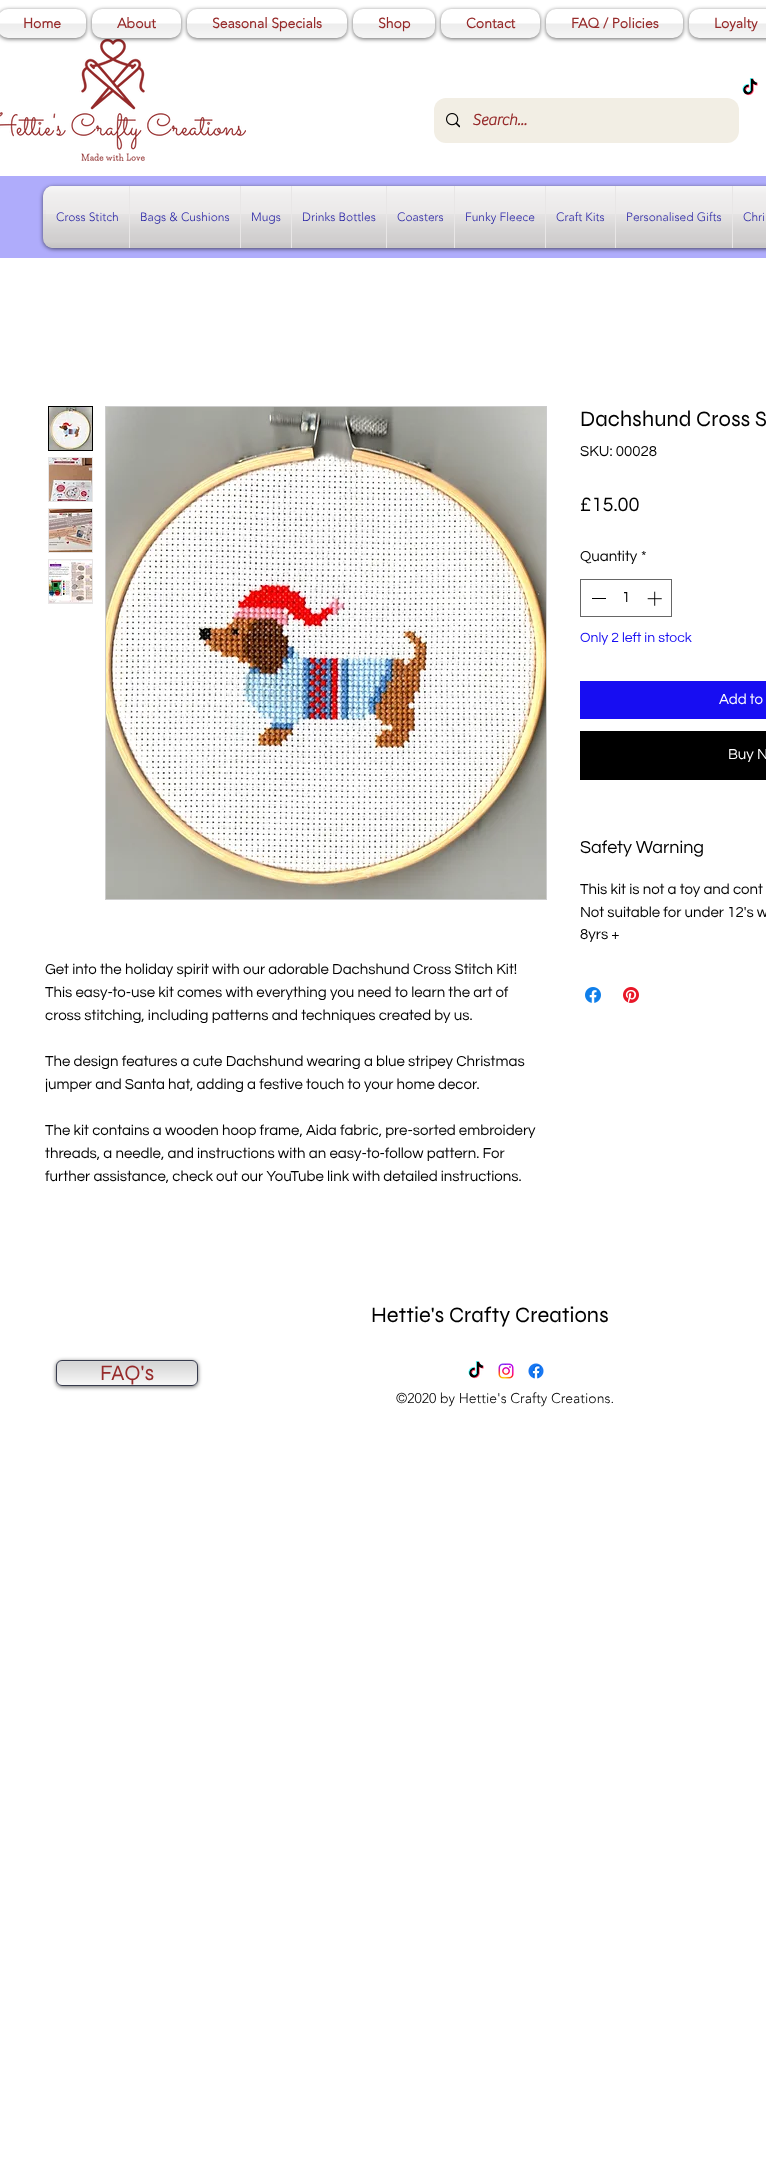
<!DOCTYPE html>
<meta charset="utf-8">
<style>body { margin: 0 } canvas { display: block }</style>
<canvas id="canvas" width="766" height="2178"></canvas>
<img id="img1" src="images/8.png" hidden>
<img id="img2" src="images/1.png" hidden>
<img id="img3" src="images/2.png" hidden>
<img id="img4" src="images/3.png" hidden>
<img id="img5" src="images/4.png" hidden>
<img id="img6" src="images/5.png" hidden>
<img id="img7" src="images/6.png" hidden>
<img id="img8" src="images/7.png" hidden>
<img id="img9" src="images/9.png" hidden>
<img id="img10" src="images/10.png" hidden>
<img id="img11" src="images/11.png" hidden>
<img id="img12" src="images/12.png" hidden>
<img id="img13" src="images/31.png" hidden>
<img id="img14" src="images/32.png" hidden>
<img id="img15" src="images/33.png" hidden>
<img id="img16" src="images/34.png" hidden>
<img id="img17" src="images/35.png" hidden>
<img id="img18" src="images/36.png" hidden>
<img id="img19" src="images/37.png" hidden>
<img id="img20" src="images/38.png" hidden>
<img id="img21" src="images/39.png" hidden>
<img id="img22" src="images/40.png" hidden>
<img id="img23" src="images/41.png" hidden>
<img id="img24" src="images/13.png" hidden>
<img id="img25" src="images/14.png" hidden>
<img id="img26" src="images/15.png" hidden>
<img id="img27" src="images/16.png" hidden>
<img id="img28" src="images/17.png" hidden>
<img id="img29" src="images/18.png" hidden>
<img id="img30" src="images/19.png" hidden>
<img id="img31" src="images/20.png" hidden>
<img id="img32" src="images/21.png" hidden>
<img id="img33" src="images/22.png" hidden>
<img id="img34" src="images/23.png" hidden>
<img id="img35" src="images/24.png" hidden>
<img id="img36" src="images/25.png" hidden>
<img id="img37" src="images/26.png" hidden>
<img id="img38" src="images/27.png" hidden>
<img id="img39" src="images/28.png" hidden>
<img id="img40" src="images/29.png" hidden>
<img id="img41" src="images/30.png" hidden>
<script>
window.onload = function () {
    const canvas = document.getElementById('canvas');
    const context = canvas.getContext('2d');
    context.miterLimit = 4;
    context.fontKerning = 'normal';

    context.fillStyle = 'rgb(255, 255, 255)';
    context.fillRect(0, 0, 766, 2178);
    context.drawImage(document.getElementById('img1'), 0, 39, 246, 122);
    context.fillStyle = 'rgba(0, 0, 0, 0.6)';
    context.filter = 'blur(2px)';
    context.beginPath();
    context.roundRect(-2, 10, 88, 29, 10);
    context.fill();
    context.filter = 'none';
    context.fillStyle = 'rgb(255, 255, 255)';
    context.beginPath();
    context.roundRect(-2, 9, 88, 29, 10);
    context.fill();
    context.drawImage(document.getElementById('img2'), 0, 23, 86, 15);
    context.fillStyle = 'rgba(0, 0, 0, 0.6)';
    context.filter = 'blur(2px)';
    context.beginPath();
    context.roundRect(92, 10, 89, 29, 10);
    context.fill();
    context.filter = 'none';
    context.fillStyle = 'rgb(255, 255, 255)';
    context.beginPath();
    context.roundRect(92, 9, 89, 29, 10);
    context.fill();
    context.drawImage(document.getElementById('img3'), 92, 23, 89, 15);
    context.fillStyle = 'rgba(0, 0, 0, 0.6)';
    context.filter = 'blur(2px)';
    context.beginPath();
    context.roundRect(187, 10, 160, 29, 10);
    context.fill();
    context.filter = 'none';
    context.fillStyle = 'rgb(255, 255, 255)';
    context.beginPath();
    context.roundRect(187, 9, 160, 29, 10);
    context.fill();
    context.drawImage(document.getElementById('img4'), 187, 23, 160, 15);
    context.fillStyle = 'rgba(0, 0, 0, 0.6)';
    context.filter = 'blur(2px)';
    context.beginPath();
    context.roundRect(353, 10, 82, 29, 10);
    context.fill();
    context.filter = 'none';
    context.fillStyle = 'rgb(255, 255, 255)';
    context.beginPath();
    context.roundRect(353, 9, 82, 29, 10);
    context.fill();
    context.drawImage(document.getElementById('img5'), 353, 23, 82, 15);
    context.fillStyle = 'rgba(0, 0, 0, 0.6)';
    context.filter = 'blur(2px)';
    context.beginPath();
    context.roundRect(441, 10, 99, 29, 10);
    context.fill();
    context.filter = 'none';
    context.fillStyle = 'rgb(255, 255, 255)';
    context.beginPath();
    context.roundRect(441, 9, 99, 29, 10);
    context.fill();
    context.drawImage(document.getElementById('img6'), 441, 23, 99, 15);
    context.fillStyle = 'rgba(0, 0, 0, 0.6)';
    context.filter = 'blur(2px)';
    context.beginPath();
    context.roundRect(546, 10, 137, 29, 10);
    context.fill();
    context.filter = 'none';
    context.fillStyle = 'rgb(255, 255, 255)';
    context.beginPath();
    context.roundRect(546, 9, 137, 29, 10);
    context.fill();
    context.drawImage(document.getElementById('img7'), 546, 23, 137, 15);
    context.fillStyle = 'rgba(0, 0, 0, 0.6)';
    context.filter = 'blur(2px)';
    context.beginPath();
    context.roundRect(689, 10, 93, 29, 10);
    context.fill();
    context.filter = 'none';
    context.fillStyle = 'rgb(255, 255, 255)';
    context.beginPath();
    context.roundRect(689, 9, 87, 29, 10);
    context.fill();
    context.drawImage(document.getElementById('img8'), 689, 23, 77, 15);
    context.drawImage(document.getElementById('img9'), 742, 78, 16, 18);
    context.fillStyle = 'rgb(242, 238, 228)';
    context.beginPath();
    context.roundRect(434, 98, 305, 45, 12);
    context.fill();
    context.drawImage(document.getElementById('img10'), 446, 113, 14, 15);
    context.fillStyle = 'rgb(175, 172, 251)';
    context.fillRect(0, 176, 766, 82);
    context.fillStyle = 'rgba(0, 0, 0, 0.6)';
    context.filter = 'blur(2px)';
    context.beginPath();
    context.roundRect(43, 187, 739, 62, 10);
    context.fill();
    context.filter = 'none';
    context.fillStyle = 'rgb(232, 230, 230)';
    context.beginPath();
    context.roundRect(43, 186, 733, 62, 10);
    context.fill();
    context.drawImage(document.getElementById('img11'), 43, 186, 10, 24);
    context.drawImage(document.getElementById('img12'), 43, 214, 10, 34);
    context.save();
    context.beginPath();
    context.roundRect(43, 186, 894, 62, 10);
    context.clip();
    context.fillRect(46, 186, 83, 62);
    context.restore();
    context.strokeStyle = 'rgb(102, 102, 102)';
    context.strokeRect(580.5, 579.5, 91, 37);
    context.fillStyle = 'rgb(0, 0, 0)';
    context.fillRect(592, 598, 14, 1);
    context.drawImage(document.getElementById('img13'), 647, 591, 15, 15);
    context.fillStyle = 'rgb(23, 13, 242)';
    context.fillRect(580, 681, 186, 38);
    context.fillStyle = 'rgb(0, 0, 0)';
    context.fillRect(580, 731, 186, 49);
    context.drawImage(document.getElementById('img14'), 585, 987, 16, 16);
    context.drawImage(document.getElementById('img15'), 623, 987, 16, 16);
    context.strokeStyle = 'rgb(0, 0, 0)';
    context.strokeRect(48.5, 406.5, 44, 44);
    context.drawImage(document.getElementById('img16'), 49, 407, 43, 43);
    context.fillStyle = 'rgb(232, 230, 230)';
    context.fillRect(48, 457, 45, 45);
    context.drawImage(document.getElementById('img17'), 49, 458, 43, 43);
    context.fillRect(48, 508, 45, 45);
    context.drawImage(document.getElementById('img18'), 49, 509, 43, 43);
    context.fillRect(48, 559, 45, 45);
    context.drawImage(document.getElementById('img19'), 49, 560, 43, 43);
    context.strokeStyle = 'rgb(204, 204, 204)';
    context.strokeRect(105.5, 406.5, 441, 493);
    context.drawImage(document.getElementById('img20'), 106, 407, 440, 492);
    context.fillStyle = 'rgba(0, 0, 0, 0.6)';
    context.filter = 'blur(2px)';
    context.beginPath();
    context.roundRect(56, 1361, 142, 26, 6);
    context.fill();
    context.filter = 'none';
    context.fillStyle = 'rgb(255, 255, 255)';
    context.beginPath();
    context.roundRect(56, 1360, 142, 26, 6);
    context.fill();
    context.drawImage(document.getElementById('img21'), 56, 1361, 142, 25);
    context.beginPath();
    context.roundRect(56.5, 1360.5, 141, 25, 5.5);
    context.strokeStyle = 'rgb(55, 59, 77)';
    context.stroke();
    context.drawImage(document.getElementById('img9'), 468, 1361, 16, 18);
    context.drawImage(document.getElementById('img22'), 498, 1363, 16, 16);
    context.drawImage(document.getElementById('img23'), 528, 1363, 16, 16);
    context.font = 'bold 14px "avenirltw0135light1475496"';
    context.fillStyle = 'rgb(150, 42, 42)';
    context.fillText('Home', 23, 28);
    context.fillText('About', 117, 28);
    context.fillText('Seasonal Specials', 212, 28);
    context.fillText('Shop', 378, 28);
    context.fillText('Contact', 466, 28);
    context.fillText('FAQ / Policies', 571, 28);
    context.fillText('Loyalty', 714, 28);
    context.font = 'bold 16px "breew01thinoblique"';
    context.fillText('Search...', 472, 125);
    context.font = '300 12px "avenirltw0135light1475496"';
    context.fillStyle = 'rgb(15, 9, 161)';
    context.fillText('Cross Stitch', 56, 221);
    context.drawImage(document.getElementById('img24'), 46, 186, 83, 36);
    context.drawImage(document.getElementById('img25'), 46, 214, 83, 34);
    context.fillText('Bags & Cushions', 140, 221);
    context.drawImage(document.getElementById('img26'), 130, 186, 110, 38);
    context.drawImage(document.getElementById('img27'), 130, 214, 110, 34);
    context.fillText('Mugs', 251, 221);
    context.drawImage(document.getElementById('img28'), 241, 186, 50, 38);
    context.drawImage(document.getElementById('img29'), 241, 214, 50, 34);
    context.fillText('Drinks Bottles', 302, 221);
    context.drawImage(document.getElementById('img30'), 292, 186, 94, 35);
    context.drawImage(document.getElementById('img31'), 292, 214, 94, 34);
    context.fillText('Coasters', 397, 221);
    context.drawImage(document.getElementById('img32'), 387, 186, 67, 36);
    context.drawImage(document.getElementById('img33'), 387, 214, 67, 34);
    context.fillText('Funky Fleece', 465, 221);
    context.drawImage(document.getElementById('img34'), 455, 186, 90, 38);
    context.drawImage(document.getElementById('img35'), 455, 214, 90, 34);
    context.fillText('Craft Kits', 556, 221);
    context.drawImage(document.getElementById('img36'), 546, 186, 69, 36);
    context.drawImage(document.getElementById('img37'), 546, 214, 69, 34);
    context.fillText('Personalised Gifts', 626, 221);
    context.drawImage(document.getElementById('img38'), 616, 186, 116, 36);
    context.drawImage(document.getElementById('img39'), 616, 214, 116, 34);
    context.fillText('Chri', 743, 221);
    context.drawImage(document.getElementById('img40'), 733, 186, 33, 36);
    context.drawImage(document.getElementById('img41'), 733, 214, 33, 34);
    context.font = '22px Syne';
    context.fillStyle = 'rgb(0, 0, 0)';
    context.fillText('Dachshund Cross S', 580, 426);
    context.font = '15px Questrial';
    context.fillText('SKU: 00028', 580, 456);
    context.font = '20px Questrial';
    context.fillText('£15.00', 580, 511);
    context.font = '15px Questrial';
    context.fillText('Quantity', 580, 561);
    context.fillText('*', 641, 561);
    context.fillText('1', 622, 602);
    context.font = '14px Questrial';
    context.fillStyle = 'rgb(23, 13, 242)';
    context.fillText('Only 2 left in stock', 580, 642);
    context.font = '15px Questrial';
    context.fillStyle = 'rgb(255, 255, 255)';
    context.fillText('Add to', 719, 704);
    context.fillText('Buy N', 728, 759);
    context.font = '18px Questrial';
    context.fillStyle = 'rgb(0, 0, 0)';
    context.fillText('Safety Warning', 580, 853);
    context.font = '15px Questrial';
    context.fillText('This kit is not a toy and cont', 580, 894);
    context.fillText('Not suitable for under 12\'s w', 580, 917);
    context.fillText('8yrs +', 580, 939);
    context.fillText('Get into the holiday spirit with our adorable Dachshund Cross Stitch Kit!', 45, 974);
    context.fillText('This easy-to-use kit comes with everything you need to learn the art of', 45, 997);
    context.fillText('cross stitching, including patterns and techniques created by us.', 45, 1020);
    context.fillText('The design features a cute Dachshund wearing a blue stripey Christmas', 45, 1066);
    context.fillText('jumper and Santa hat, adding a festive touch to your home decor.', 45, 1089);
    context.fillText('The kit contains a wooden hoop frame, Aida fabric, pre-sorted embroidery', 45, 1135);
    context.fillText('threads, a needle, and instructions with an easy-to-follow pattern. For', 45, 1158);
    context.fillText('further assistance, check out our YouTube link with detailed instructions.', 45, 1181);
    context.font = '22px Syne';
    context.fillText('Hettie\'s Crafty Creations', 371, 1322);
    context.fillStyle = 'rgb(150, 42, 42)';
    context.fillText('FAQ\'s', 100, 1380);
    context.font = '300 14px "avenirltw0135light1475496"';
    context.fillStyle = 'rgb(0, 0, 0)';
    context.fillText('©2020 by Hettie\'s Crafty Creations.', 396, 1403);
};
</script>
